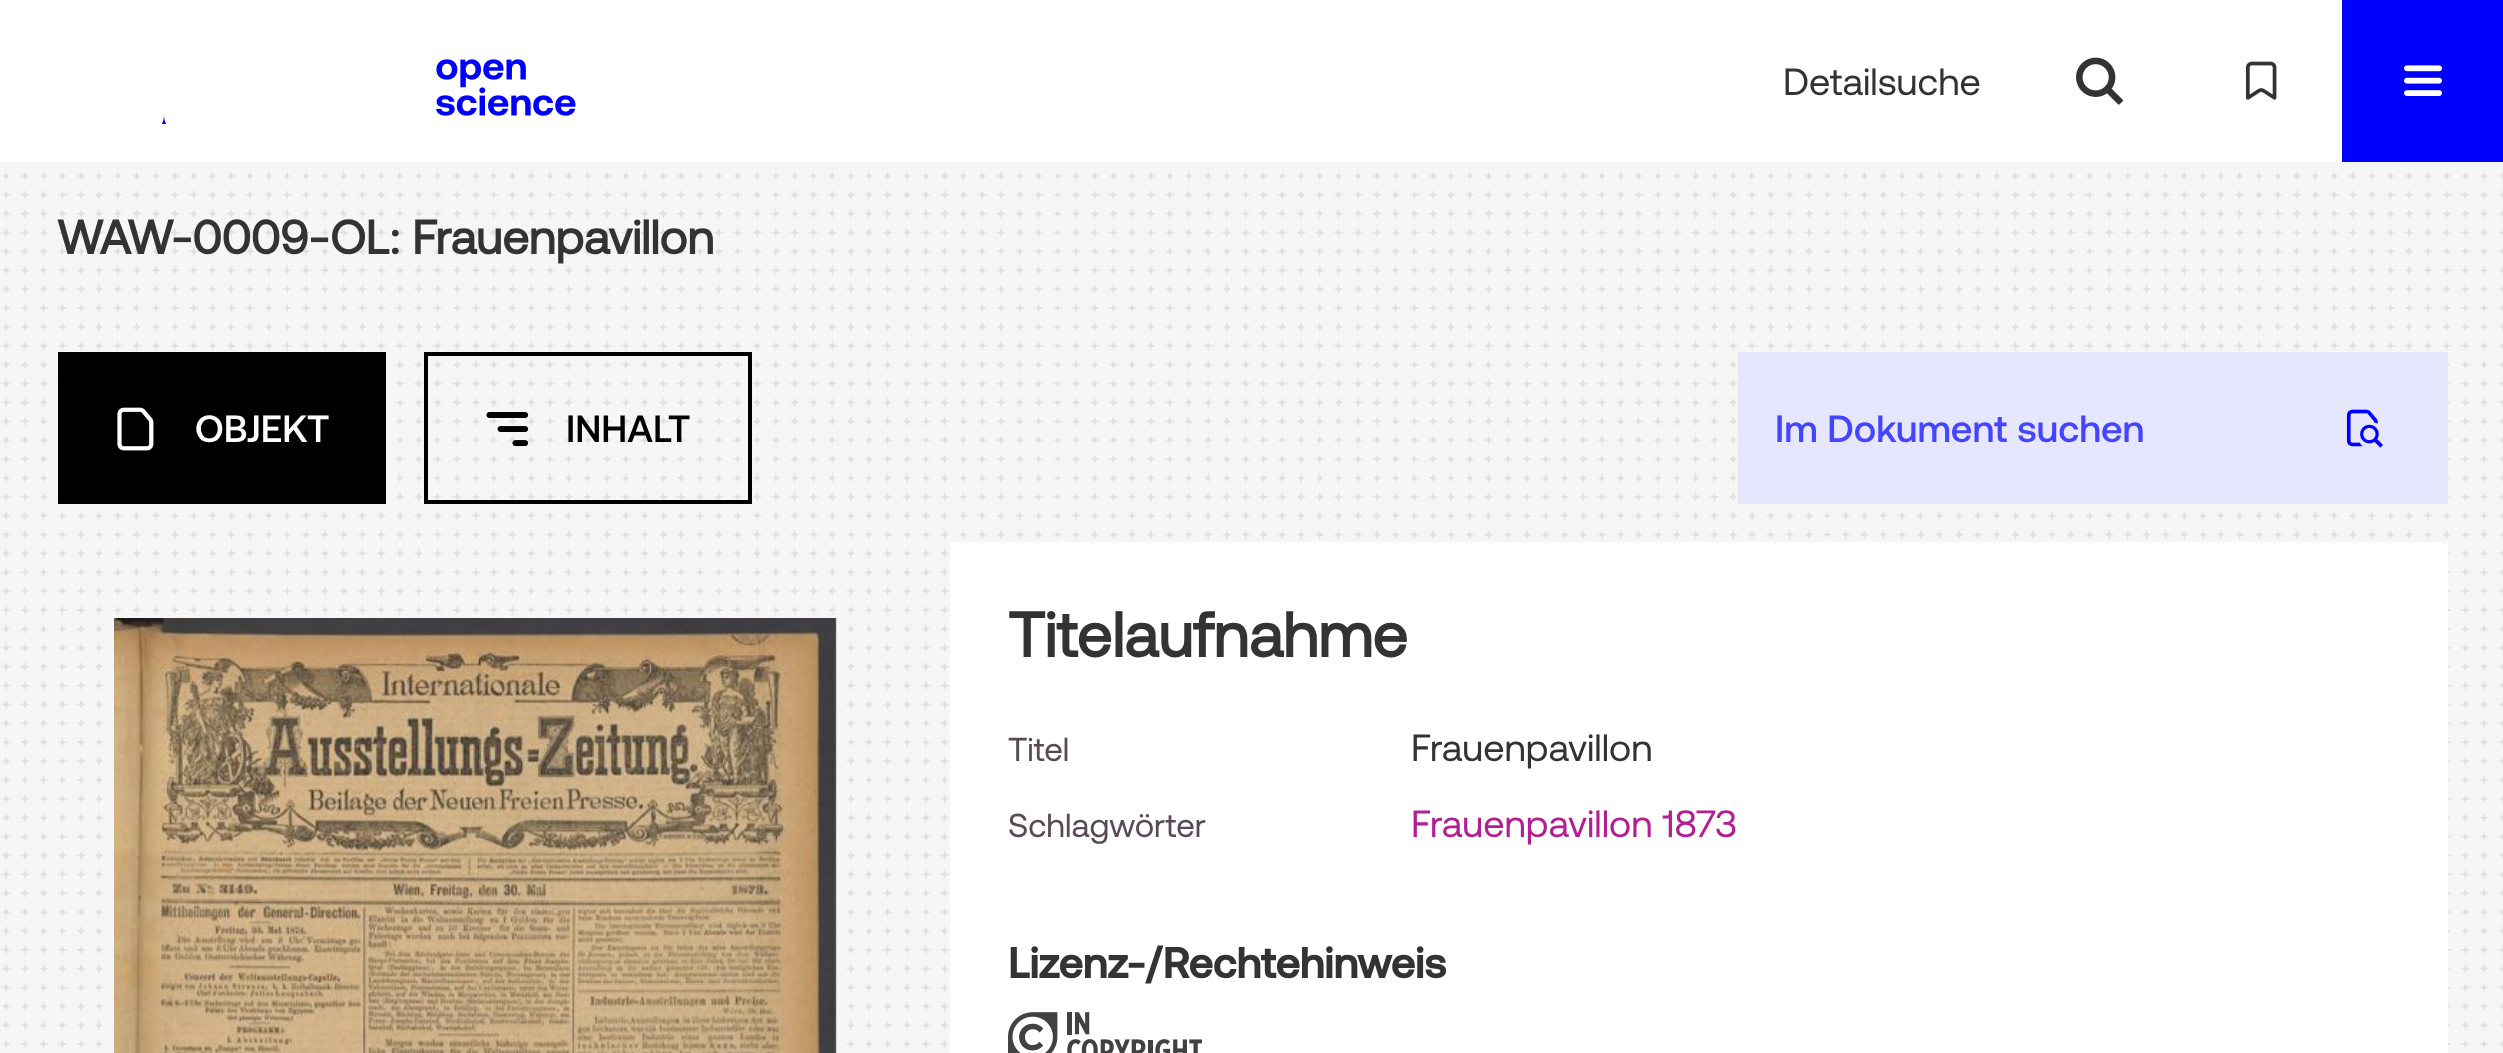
<!DOCTYPE html>
<meta charset="utf-8">
<style>body { margin: 0 } canvas { display: block }</style>
<canvas id="canvas" width="2503" height="1053"></canvas>
<img id="img1" src="images/1.png" hidden>
<img id="img2" src="images/2.png" hidden>
<img id="img3" src="images/3.png" hidden>
<img id="img4" src="images/4.png" hidden>
<img id="img5" src="images/5.png" hidden>
<img id="img6" src="images/6.png" hidden>
<img id="img7" src="images/7.png" hidden>
<img id="img8" src="images/8.png" hidden>
<img id="img9" src="images/9.png" hidden>
<img id="img10" src="images/10.png" hidden>
<script>
window.onload = function () {
    const canvas = document.getElementById('canvas');
    const context = canvas.getContext('2d');
    context.miterLimit = 4;
    context.fontKerning = 'normal';

    context.fillStyle = 'rgb(246, 246, 246)';
    context.fillRect(0, 0, 2503, 1053);
    context.drawImage(document.getElementById('img1'), 0, 162, 2503, 888);
    context.fillStyle = 'rgb(255, 255, 255)';
    context.fillRect(0, 0, 2342, 162);
    context.drawImage(document.getElementById('img2'), 436, 59, 140, 57);
    context.drawImage(document.getElementById('img3'), 2076, 57, 47, 48);
    context.drawImage(document.getElementById('img4'), 2246, 61, 31, 39);
    context.fillStyle = 'rgb(0, 0, 255)';
    context.fillRect(2342, 0, 161, 162);
    context.drawImage(document.getElementById('img5'), 2404, 65, 38, 31);
    context.save();
    context.beginPath();
    context.rect(38, 38, 360, 86);
    context.clip();
    context.beginPath();
    context.moveTo(164, 147);
    context.bezierCurveTo(164, 133, 158, 132, 146, 131);
    context.lineTo(131, 130);
    context.lineTo(146, 130);
    context.bezierCurveTo(158, 129, 164, 127, 164, 114);
    context.bezierCurveTo(164, 125, 169, 130, 181, 130);
    context.bezierCurveTo(169, 130, 164, 135, 164, 147);
    context.closePath();
    context.fill();
    context.restore();
    context.fillStyle = 'rgb(0, 0, 0)';
    context.fillRect(58, 352, 328, 152);
    context.drawImage(document.getElementById('img6'), 117, 407, 37, 44);
    context.strokeStyle = 'rgb(0, 0, 0)';
    context.lineWidth = 4;
    context.strokeRect(426, 354, 324, 148);
    context.drawImage(document.getElementById('img7'), 486, 412, 43, 35);
    context.fillStyle = 'rgb(230, 230, 255)';
    context.fillRect(1738, 352, 710, 152);
    context.drawImage(document.getElementById('img8'), 2346, 409, 37, 39);
    context.drawImage(document.getElementById('img9'), 114, 618, 723, 435);
    context.fillStyle = 'rgb(255, 255, 255)';
    context.fillRect(950, 542, 1498, 511);
    context.drawImage(document.getElementById('img10'), 1008, 1012, 194, 41);
    context.font = '38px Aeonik';
    context.fillStyle = 'rgb(51, 51, 51)';
    context.fillText('Detailsuche', 1783, 95);
    context.font = 'bold 47.5px Aeonik';
    context.fillText('WAW-0009-OL: Frauenpavillon', 57, 254);
    context.font = '500 38px Aeonik';
    context.fillStyle = 'rgb(255, 255, 255)';
    context.fillText('OBJEKT', 195, 442);
    context.fillStyle = 'rgb(0, 0, 0)';
    context.fillText('INHALT', 566, 442);
    context.fillStyle = 'rgb(69, 69, 255)';
    context.fillText('Im Dokument suchen', 1775, 442);
    context.font = 'bold 63px Aeonik';
    context.fillStyle = 'rgb(51, 51, 51)';
    context.fillText('Titelaufnahme', 1008, 657);
    context.font = '33.25px Aeonik';
    context.fillStyle = 'rgb(88, 73, 84)';
    context.fillText('Titel', 1008, 761);
    context.font = '38px Aeonik';
    context.fillStyle = 'rgb(51, 51, 51)';
    context.fillText('Frauenpavillon', 1411, 761);
    context.font = '33.25px Aeonik';
    context.fillStyle = 'rgb(88, 73, 84)';
    context.fillText('Schlagwörter', 1008, 837);
    context.font = '38px Aeonik';
    context.fillStyle = 'rgb(180, 30, 145)';
    context.fillText('Frauenpavillon 1873', 1411, 837);
    context.font = 'bold 42.75px "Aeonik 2"';
    context.fillStyle = 'rgb(51, 51, 51)';
    context.fillText('Lizenz-/Rechtehinweis', 1008, 978);
};
</script>
